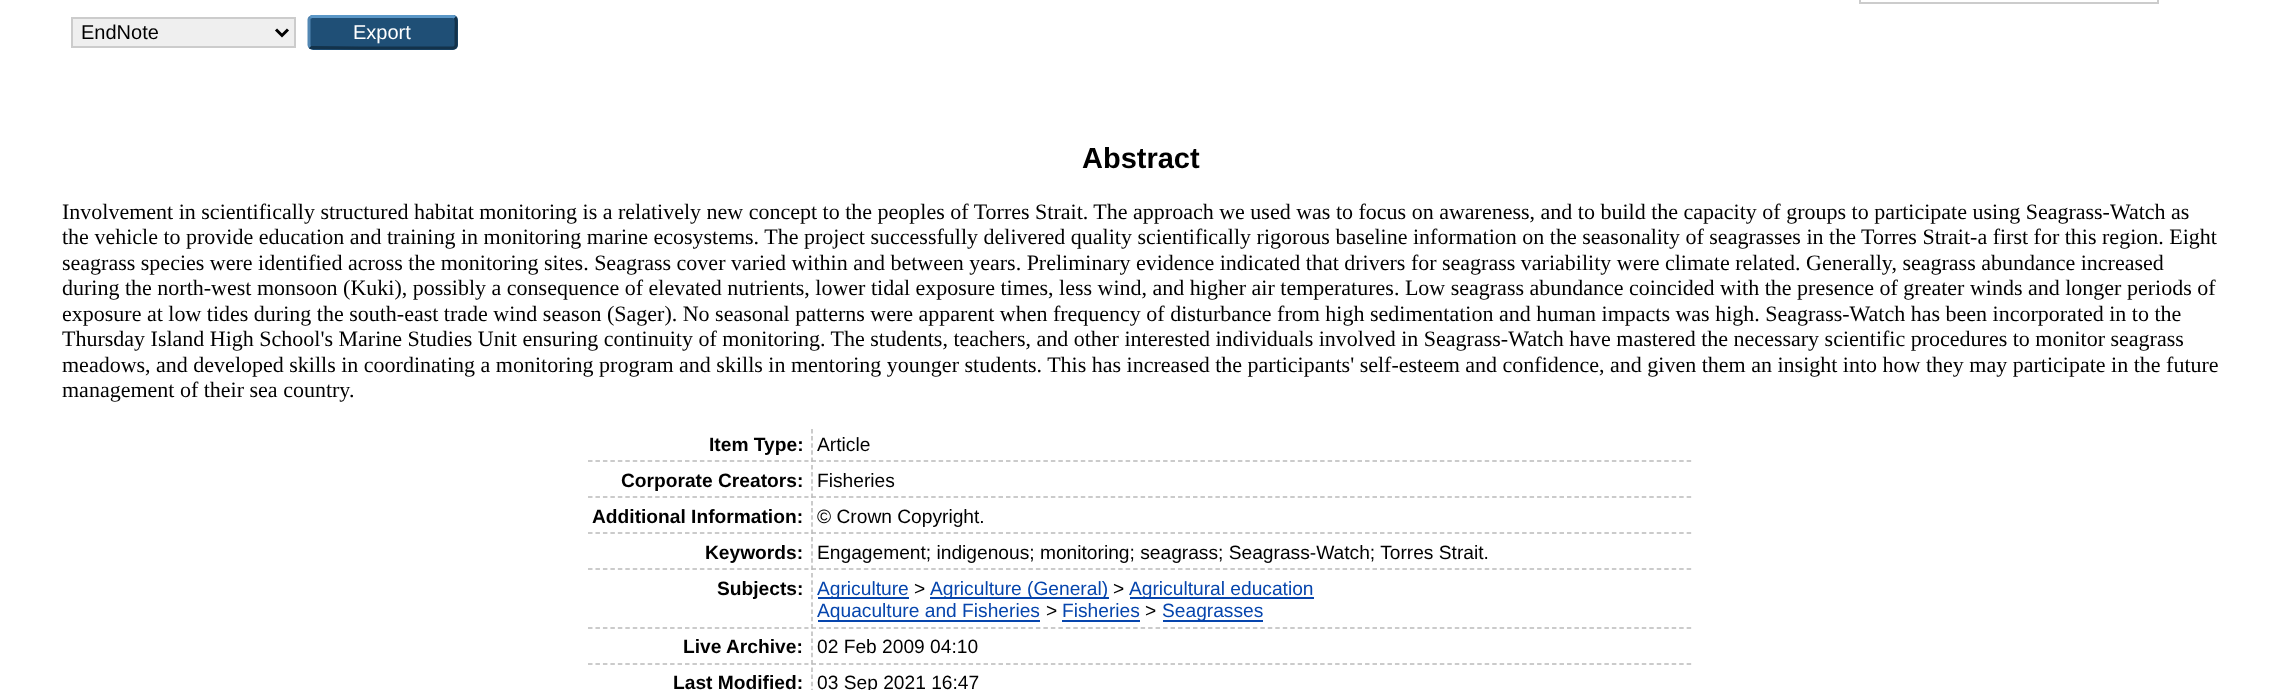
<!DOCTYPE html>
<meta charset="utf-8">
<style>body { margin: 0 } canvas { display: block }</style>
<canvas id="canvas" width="2279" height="690"></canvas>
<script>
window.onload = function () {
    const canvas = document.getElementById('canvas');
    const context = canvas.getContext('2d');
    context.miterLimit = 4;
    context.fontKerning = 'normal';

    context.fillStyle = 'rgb(255, 255, 255)';
    context.fillRect(0, 0, 2279, 690);
    context.fillStyle = 'rgb(204, 204, 204)';
    context.fillRect(2157, 0, 2, 3);
    context.fillRect(1859, 2, 300, 2);
    context.fillRect(1859, 0, 2, 3);
    context.fillStyle = 'rgb(239, 239, 239)';
    context.beginPath();
    context.rect(72, 18, 223, 29);
    context.fill();
    context.strokeStyle = 'rgb(204, 204, 204)';
    context.lineWidth = 2;
    context.stroke();
    context.beginPath();
    context.moveTo(276, 29.5);
    context.lineTo(282, 35.5);
    context.lineTo(288, 29.5);
    context.strokeStyle = 'rgb(0, 0, 0)';
    context.lineWidth = 3;
    context.stroke();
    context.fillStyle = 'rgb(31, 79, 118)';
    context.beginPath();
    context.roundRect(308, 15, 150, 35, 5);
    context.fill();
    context.beginPath();
    context.moveTo(310, 17.5);
    context.lineTo(312, 16.5);
    context.lineTo(453.5, 16.5);
    context.lineTo(455, 17.5);
    context.strokeStyle = 'rgb(91, 151, 199)';
    context.stroke();
    context.beginPath();
    context.moveTo(455, 17.5);
    context.bezierCurveTo(457, 19.5, 456, 29.5, 456, 32);
    context.lineTo(456, 41);
    context.bezierCurveTo(456, 43, 457, 48, 453, 48);
    context.lineTo(359, 48);
    context.lineTo(310.5, 47.5);
    context.lineTo(310, 47);
    context.strokeStyle = 'rgb(19, 50, 74)';
    context.stroke();
    context.beginPath();
    context.moveTo(310, 47);
    context.bezierCurveTo(309.5, 46.5, 309, 46, 309, 45);
    context.lineTo(309, 19.5);
    context.bezierCurveTo(309, 18.5, 309.5, 18, 310, 17.5);
    context.strokeStyle = 'rgb(82, 135, 179)';
    context.stroke();
    context.beginPath();
    context.moveTo(588, 461);
    context.lineTo(808.5, 461);
    context.strokeStyle = 'rgb(187, 187, 187)';
    context.lineWidth = 1.5;
    context.setLineDash([4.5, 2.96]);
    context.stroke();
    context.beginPath();
    context.moveTo(811.5, 461);
    context.lineTo(1692, 461);
    context.setLineDash([4.5, 2.98]);
    context.stroke();
    context.beginPath();
    context.moveTo(812, 429);
    context.lineTo(812, 462);
    context.setLineDash([4.5, 2.62]);
    context.stroke();
    context.beginPath();
    context.moveTo(588, 497);
    context.lineTo(808.5, 497);
    context.setLineDash([4.5, 2.96]);
    context.stroke();
    context.beginPath();
    context.moveTo(811.5, 497);
    context.lineTo(1692, 497);
    context.setLineDash([4.5, 2.98]);
    context.stroke();
    context.beginPath();
    context.moveTo(812, 465);
    context.lineTo(812, 498);
    context.setLineDash([4.5, 2.62]);
    context.stroke();
    context.beginPath();
    context.moveTo(588, 533);
    context.lineTo(808.5, 533);
    context.setLineDash([4.5, 2.96]);
    context.stroke();
    context.beginPath();
    context.moveTo(811.5, 533);
    context.lineTo(1692, 533);
    context.setLineDash([4.5, 2.98]);
    context.stroke();
    context.beginPath();
    context.moveTo(812, 501);
    context.lineTo(812, 534);
    context.setLineDash([4.5, 2.62]);
    context.stroke();
    context.beginPath();
    context.moveTo(588, 569);
    context.lineTo(808.5, 569);
    context.setLineDash([4.5, 2.96]);
    context.stroke();
    context.beginPath();
    context.moveTo(811.5, 569);
    context.lineTo(1692, 569);
    context.setLineDash([4.5, 2.98]);
    context.stroke();
    context.beginPath();
    context.moveTo(812, 537);
    context.lineTo(812, 570);
    context.setLineDash([4.5, 2.62]);
    context.stroke();
    context.beginPath();
    context.moveTo(588, 628);
    context.lineTo(808.5, 628);
    context.setLineDash([4.5, 2.96]);
    context.stroke();
    context.beginPath();
    context.moveTo(811.5, 628);
    context.lineTo(1692, 628);
    context.setLineDash([4.5, 2.98]);
    context.stroke();
    context.beginPath();
    context.moveTo(812, 573);
    context.lineTo(812, 628.5);
    context.setLineDash([4.5, 2.79]);
    context.stroke();
    context.fillStyle = 'rgb(6, 69, 173)';
    context.fillRect(818, 597, 91, 2);
    context.fillRect(930, 597, 179, 2);
    context.fillRect(1130, 597, 184, 2);
    context.fillRect(818, 620, 222, 2);
    context.fillRect(1062, 620, 78, 2);
    context.fillRect(1163, 620, 100, 2);
    context.beginPath();
    context.moveTo(588, 664);
    context.lineTo(808.5, 664);
    context.setLineDash([4.5, 2.96]);
    context.stroke();
    context.beginPath();
    context.moveTo(811.5, 664);
    context.lineTo(1692, 664);
    context.setLineDash([4.5, 2.98]);
    context.stroke();
    context.beginPath();
    context.moveTo(812, 631.5);
    context.lineTo(812, 664.5);
    context.moveTo(812, 667.5);
    context.lineTo(812, 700.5);
    context.setLineDash([4.5, 2.62]);
    context.stroke();
    context.font = '20px Liberation Sans';
    context.fillStyle = 'rgb(0, 0, 0)';
    context.fillText('EndNote', 81, 39);
    context.fillStyle = 'rgb(255, 255, 255)';
    context.fillText('Export', 353, 39);
    context.font = 'bold 29px Liberation Sans';
    context.fillStyle = 'rgb(0, 0, 0)';
    context.fillText('Abstract', 1082, 168);
    context.font = '22px Liberation Serif';
    context.fillText('Involvement in scientifically structured habitat monitoring is a relatively new concept to the peoples of Torres Strait. The approach we used was to focus on awareness, and to build the capacity of groups to participate using Seagrass-Watch as', 62, 219);
    context.fillText('the vehicle to provide education and training in monitoring marine ecosystems. The project successfully delivered quality scientifically rigorous baseline information on the seasonality of seagrasses in the Torres Strait-a first for this region. Eight', 62, 244);
    context.fillText('seagrass species were identified across the monitoring sites. Seagrass cover varied within and between years. Preliminary evidence indicated that drivers for seagrass variability were climate related. Generally, seagrass abundance increased', 62, 270);
    context.fillText('during the north-west monsoon (Kuki), possibly a consequence of elevated nutrients, lower tidal exposure times, less wind, and higher air temperatures. Low seagrass abundance coincided with the presence of greater winds and longer periods of', 62, 295);
    context.fillText('exposure at low tides during the south-east trade wind season (Sager). No seasonal patterns were apparent when frequency of disturbance from high sedimentation and human impacts was high. Seagrass-Watch has been incorporated in to the', 62, 321);
    context.fillText('Thursday Island High School\'s Marine Studies Unit ensuring continuity of monitoring. The students, teachers, and other interested individuals involved in Seagrass-Watch have mastered the necessary scientific procedures to monitor seagrass', 62, 346);
    context.fillText('meadows, and developed skills in coordinating a monitoring program and skills in mentoring younger students. This has increased the participants\' self-esteem and confidence, and given them an insight into how they may participate in the future', 62, 372);
    context.fillText('management of their sea country.', 62, 397);
    context.font = 'bold 19.2px Liberation Sans';
    context.fillText('Item Type:', 709, 451);
    context.font = '19.2px Liberation Sans';
    context.fillText('Article', 817, 451);
    context.font = 'bold 19.2px Liberation Sans';
    context.fillText('Corporate Creators:', 621, 487);
    context.font = '19.2px Liberation Sans';
    context.fillText('Fisheries', 817, 487);
    context.font = 'bold 19.2px Liberation Sans';
    context.fillText('Additional Information:', 592, 523);
    context.font = '19.2px Liberation Sans';
    context.fillText('© Crown Copyright.', 817, 523);
    context.font = 'bold 19.2px Liberation Sans';
    context.fillText('Keywords:', 705, 559);
    context.font = '19.2px Liberation Sans';
    context.fillText('Engagement; indigenous; monitoring; seagrass; Seagrass-Watch; Torres Strait.', 817, 559);
    context.font = 'bold 19.2px Liberation Sans';
    context.fillText('Subjects:', 717, 595);
    context.font = '19.2px Liberation Sans';
    context.fillStyle = 'rgb(6, 69, 173)';
    context.fillText('Agriculture', 817, 595);
    context.fillStyle = 'rgb(0, 0, 0)';
    context.fillText('>', 914, 595);
    context.fillStyle = 'rgb(6, 69, 173)';
    context.fillText('Agriculture (General)', 930, 595);
    context.fillStyle = 'rgb(0, 0, 0)';
    context.fillText('>', 1113, 595);
    context.fillStyle = 'rgb(6, 69, 173)';
    context.fillText('Agricultural education', 1129, 595);
    context.fillText('Aquaculture and Fisheries', 817, 617);
    context.fillStyle = 'rgb(0, 0, 0)';
    context.fillText('>', 1046, 617);
    context.fillStyle = 'rgb(6, 69, 173)';
    context.fillText('Fisheries', 1062, 617);
    context.fillStyle = 'rgb(0, 0, 0)';
    context.fillText('>', 1145, 617);
    context.fillStyle = 'rgb(6, 69, 173)';
    context.fillText('Seagrasses', 1162, 617);
    context.font = 'bold 19.2px Liberation Sans';
    context.fillStyle = 'rgb(0, 0, 0)';
    context.fillText('Live Archive:', 683, 653);
    context.font = '19.2px Liberation Sans';
    context.fillText('02 Feb 2009 04:10', 817, 653);
    context.font = 'bold 19.2px Liberation Sans';
    context.fillText('Last Modified:', 673, 689);
    context.font = '19.2px Liberation Sans';
    context.fillText('03 Sep 2021 16:47', 817, 689);
};
</script>
